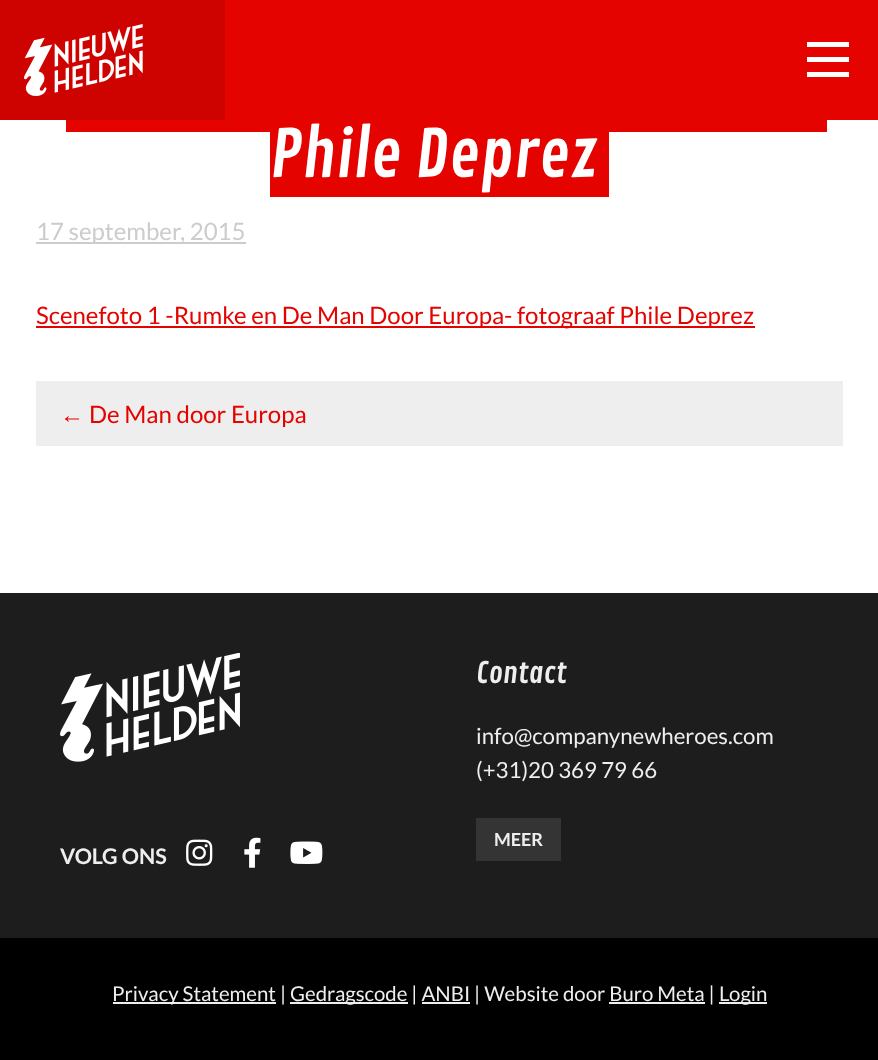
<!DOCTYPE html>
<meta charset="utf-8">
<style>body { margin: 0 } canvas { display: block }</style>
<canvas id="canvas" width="878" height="1060"></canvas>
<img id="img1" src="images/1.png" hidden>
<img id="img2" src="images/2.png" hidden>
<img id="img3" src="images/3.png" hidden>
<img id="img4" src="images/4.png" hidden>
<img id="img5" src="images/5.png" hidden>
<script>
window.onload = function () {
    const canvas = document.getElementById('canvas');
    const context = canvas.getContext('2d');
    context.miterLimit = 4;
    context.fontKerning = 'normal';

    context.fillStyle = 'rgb(255, 255, 255)';
    context.fillRect(0, 0, 878, 1060);
    context.fillStyle = 'rgb(229, 3, 0)';
    context.fillRect(225, 0, 653, 120);
    context.fillStyle = 'rgb(206, 3, 0)';
    context.fillRect(0, 0, 225, 120);
    context.drawImage(document.getElementById('img1'), 24, 24, 119, 72);
    context.fillStyle = 'rgb(255, 255, 255)';
    context.fillRect(807, 57, 42, 5);
    context.fillRect(807, 42, 42, 5);
    context.fillRect(807, 72, 42, 5);
    context.fillStyle = 'rgb(229, 3, 0)';
    context.fillRect(66, 120, 761, 12);
    context.fillRect(270, 132, 339, 65);
    context.fillStyle = 'rgb(204, 204, 204)';
    context.fillRect(36, 242, 210, 2);
    context.fillStyle = 'rgb(229, 3, 0)';
    context.fillRect(36, 326, 719, 2);
    context.fillStyle = 'rgb(238, 238, 238)';
    context.fillRect(36, 381, 807, 65);
    context.fillStyle = 'rgb(29, 29, 29)';
    context.fillRect(0, 593, 878, 345);
    context.fillStyle = 'rgb(52, 52, 52)';
    context.fillRect(476, 818, 85, 43);
    context.drawImage(document.getElementById('img2'), 60, 653, 180, 109);
    context.drawImage(document.getElementById('img3'), 186, 839, 27, 27);
    context.drawImage(document.getElementById('img4'), 244, 837, 17, 31);
    context.drawImage(document.getElementById('img5'), 290, 841, 33, 23);
    context.fillStyle = 'rgb(0, 0, 0)';
    context.fillRect(0, 938, 878, 122);
    context.fillStyle = 'rgb(238, 238, 238)';
    context.fillRect(113, 1002, 163, 2);
    context.fillRect(290, 1002, 118, 2);
    context.fillRect(719, 1002, 48, 2);
    context.fillRect(422, 1002, 48, 2);
    context.fillRect(609, 1002, 96, 2);
    context.font = '64.75px Contrail One';
    context.fillStyle = 'rgb(255, 255, 255)';
    context.fillText('Phile Deprez', 270, 177);
    context.font = '24px Lato';
    context.fillStyle = 'rgb(204, 204, 204)';
    context.fillText('17 september, 2015', 36, 240);
    context.fillStyle = 'rgb(229, 3, 0)';
    context.fillText('Scenefoto 1 -Rumke en De Man Door Europa- fotograaf Phile Deprez', 36, 324);
    context.font = '24px Liberation Sans';
    context.fillText('←', 60, 423);
    context.font = '24px Lato';
    context.fillText('De Man door Europa', 89, 423);
    context.font = '29px Contrail One';
    context.fillStyle = 'rgb(238, 238, 238)';
    context.fillText('Contact', 476, 683);
    context.font = '22.25px Lato';
    context.fillText('info@companynewheroes.com', 476, 744);
    context.fillText('(+31)20 369 79 66', 476, 778);
    context.font = 'bold 18px Lato';
    context.fillText('MEER', 494, 846);
    context.font = 'bold 21.5px Lato';
    context.fillText('VOLG ONS', 60, 864);
    context.font = '20.4px Lato';
    context.fillText('Privacy Statement |', 112, 1001);
    context.fillText('Gedragscode | ANBI | Website door Buro Meta |', 290, 1001);
    context.fillText('Login', 719, 1001);
};
</script>
